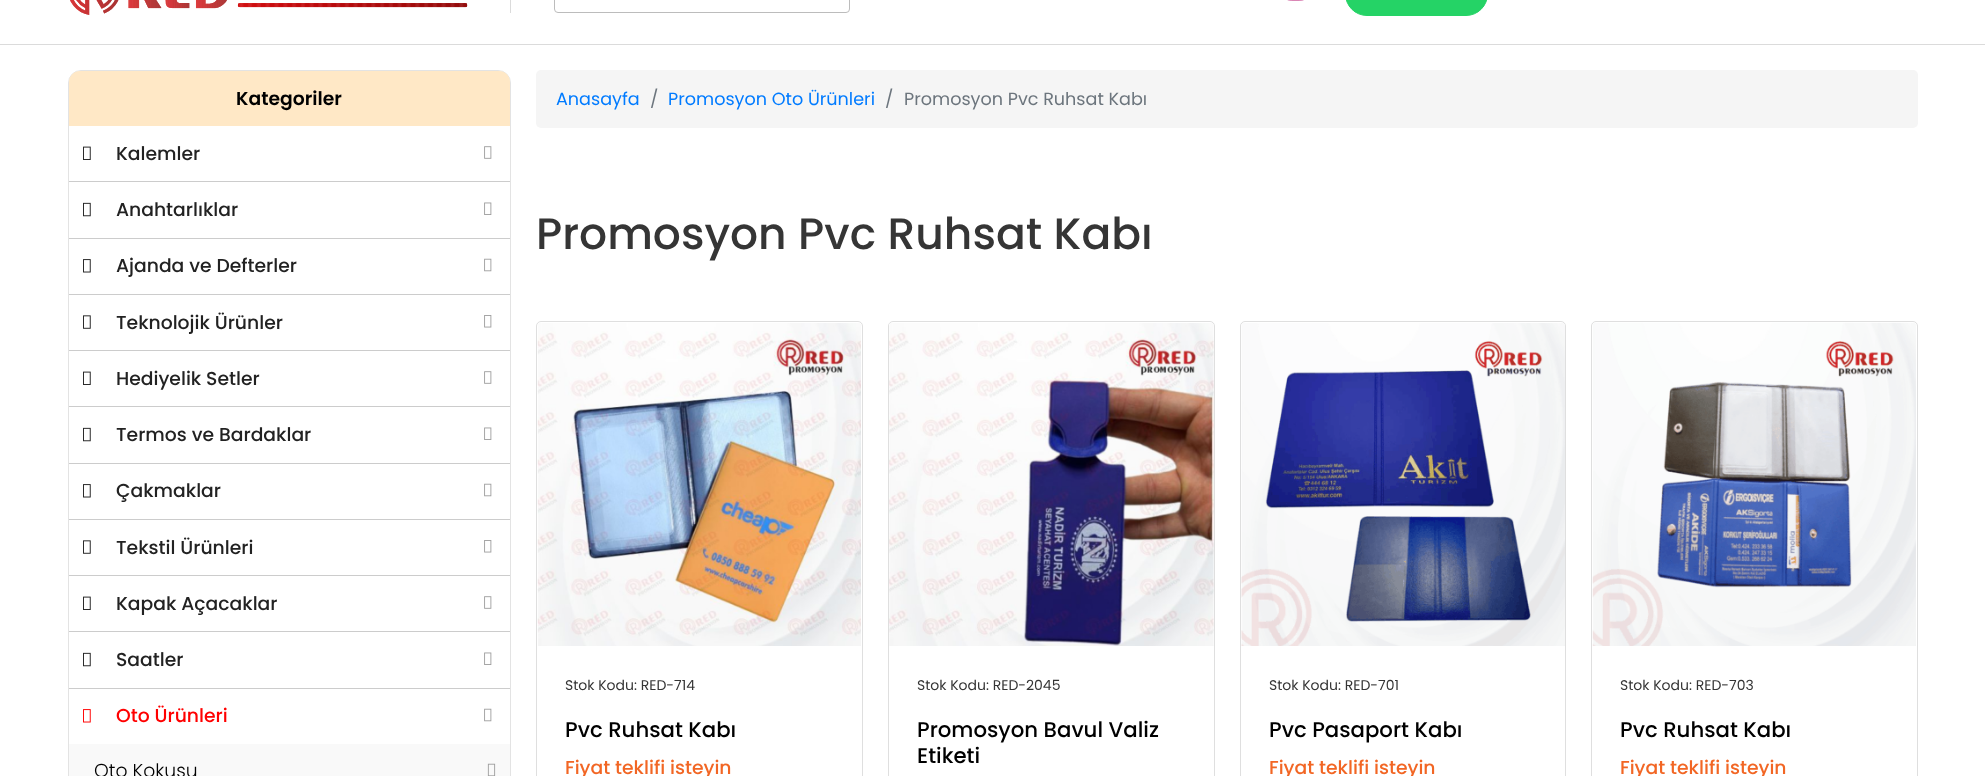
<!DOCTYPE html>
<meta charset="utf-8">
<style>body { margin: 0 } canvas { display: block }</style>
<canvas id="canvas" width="1985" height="776"></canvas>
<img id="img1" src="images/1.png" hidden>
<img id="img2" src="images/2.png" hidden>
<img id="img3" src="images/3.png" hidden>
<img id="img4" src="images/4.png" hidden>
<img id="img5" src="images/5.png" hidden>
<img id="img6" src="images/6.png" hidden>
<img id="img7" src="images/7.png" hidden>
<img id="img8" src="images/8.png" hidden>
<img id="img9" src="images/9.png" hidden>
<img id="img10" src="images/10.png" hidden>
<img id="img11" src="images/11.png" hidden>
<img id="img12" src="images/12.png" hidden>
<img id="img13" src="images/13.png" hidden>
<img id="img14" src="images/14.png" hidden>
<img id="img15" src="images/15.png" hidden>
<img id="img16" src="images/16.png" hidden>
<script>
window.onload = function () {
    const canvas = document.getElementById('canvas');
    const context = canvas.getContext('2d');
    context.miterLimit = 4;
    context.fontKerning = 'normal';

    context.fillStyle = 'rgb(255, 255, 255)';
    context.fillRect(0, 0, 1985, 776);
    context.fillStyle = 'rgb(219, 219, 219)';
    context.fillRect(0, 44, 1985, 1);
    context.drawImage(document.getElementById('img1'), 70, 0, 398, 15);
    context.fillRect(510, 0, 1, 13);
    context.beginPath();
    context.roundRect(554.5, -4.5, 295, 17, 3.5);
    context.strokeStyle = 'rgb(188, 188, 188)';
    context.stroke();
    context.drawImage(document.getElementById('img2'), 1287, 0, 17, 1);
    context.fillStyle = 'rgb(37, 211, 102)';
    context.beginPath();
    context.roundRect(1345.5, -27.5, 142, 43, 26);
    context.fill();
    context.strokeStyle = 'rgb(37, 211, 102)';
    context.stroke();
    context.beginPath();
    context.roundRect(68.5, 70.5, 442, 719, 12.5);
    context.strokeStyle = 'rgb(227, 227, 227)';
    context.stroke();
    context.fillStyle = 'rgb(255, 232, 198)';
    context.beginPath();
    context.roundRect(69, 71, 441, 55, [11, 11, 0, 0]);
    context.fill();
    context.fillStyle = 'rgb(204, 204, 204)';
    context.fillRect(69, 181, 441, 1);
    context.drawImage(document.getElementById('img3'), 83, 146, 8, 14);
    context.drawImage(document.getElementById('img4'), 484, 146, 8, 13);
    context.fillRect(69, 238, 441, 1);
    context.drawImage(document.getElementById('img5'), 83, 202, 8, 15);
    context.drawImage(document.getElementById('img6'), 484, 202, 8, 13);
    context.fillRect(69, 294, 441, 1);
    context.drawImage(document.getElementById('img7'), 83, 259, 8, 14);
    context.drawImage(document.getElementById('img8'), 484, 258, 8, 14);
    context.fillRect(69, 350, 441, 1);
    context.drawImage(document.getElementById('img9'), 83, 315, 8, 14);
    context.drawImage(document.getElementById('img10'), 484, 315, 8, 13);
    context.fillRect(69, 406, 441, 1);
    context.drawImage(document.getElementById('img3'), 83, 371, 8, 14);
    context.drawImage(document.getElementById('img4'), 484, 371, 8, 13);
    context.fillRect(69, 463, 441, 1);
    context.drawImage(document.getElementById('img5'), 83, 427, 8, 15);
    context.drawImage(document.getElementById('img6'), 484, 427, 8, 13);
    context.fillRect(69, 519, 441, 1);
    context.drawImage(document.getElementById('img7'), 83, 484, 8, 14);
    context.drawImage(document.getElementById('img8'), 484, 483, 8, 14);
    context.fillRect(69, 575, 441, 1);
    context.drawImage(document.getElementById('img9'), 83, 540, 8, 14);
    context.drawImage(document.getElementById('img10'), 484, 540, 8, 13);
    context.fillRect(69, 631, 441, 1);
    context.drawImage(document.getElementById('img3'), 83, 596, 8, 14);
    context.drawImage(document.getElementById('img4'), 484, 596, 8, 13);
    context.fillRect(69, 688, 441, 1);
    context.drawImage(document.getElementById('img5'), 83, 652, 8, 15);
    context.drawImage(document.getElementById('img6'), 484, 652, 8, 13);
    context.drawImage(document.getElementById('img11'), 83, 709, 8, 14);
    context.drawImage(document.getElementById('img8'), 484, 708, 8, 14);
    context.fillStyle = 'rgb(249, 249, 249)';
    context.fillRect(69, 744, 441, 32);
    context.drawImage(document.getElementById('img12'), 487, 763, 9, 13);
    context.fillStyle = 'rgb(245, 245, 245)';
    context.beginPath();
    context.roundRect(536, 70, 1382, 58, 5);
    context.fill();
    context.beginPath();
    context.roundRect(536.5, 321.5, 326, 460, 4.5);
    context.strokeStyle = 'rgb(223, 223, 223)';
    context.stroke();
    context.drawImage(document.getElementById('img13'), 537, 323, 324, 323);
    context.beginPath();
    context.roundRect(888.5, 321.5, 326, 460, 4.5);
    context.stroke();
    context.drawImage(document.getElementById('img14'), 889, 323, 325, 323);
    context.beginPath();
    context.roundRect(1240.5, 321.5, 325, 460, 4.5);
    context.stroke();
    context.drawImage(document.getElementById('img15'), 1241, 323, 324, 323);
    context.beginPath();
    context.roundRect(1591.5, 321.5, 326, 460, 4.5);
    context.stroke();
    context.drawImage(document.getElementById('img16'), 1592, 322, 324, 324);
    context.font = '600 18.75px Poppins';
    context.fillStyle = 'rgb(0, 0, 0)';
    context.fillText('Kategoriler', 236, 105);
    context.font = '500 18.75px Poppins';
    context.fillStyle = 'rgb(34, 34, 34)';
    context.fillText('Kalemler', 116, 160);
    context.fillText('Anahtarlıklar', 116, 216);
    context.fillText('Ajanda ve Defterler', 116, 272);
    context.fillText('Teknolojik Ürünler', 116, 329);
    context.fillText('Hediyelik Setler', 116, 385);
    context.fillText('Termos ve Bardaklar', 116, 441);
    context.fillText('Çakmaklar', 116, 497);
    context.fillText('Tekstil Ürünleri', 116, 554);
    context.fillText('Kapak Açacaklar', 116, 610);
    context.fillText('Saatler', 116, 666);
    context.fillStyle = 'rgb(255, 0, 0)';
    context.fillText('Oto Ürünleri', 116, 722);
    context.font = '300 18.75px Poppins';
    context.fillStyle = 'rgb(0, 0, 0)';
    context.fillText('Oto Kokusu', 94, 777);
    context.font = '17.6px Poppins';
    context.fillStyle = 'rgb(0, 123, 255)';
    context.fillText('Anasayfa', 556, 105);
    context.fillStyle = 'rgb(108, 117, 125)';
    context.fillText('/', 650, 105);
    context.fillStyle = 'rgb(0, 123, 255)';
    context.fillText('Promosyon Oto Ürünleri', 668, 105);
    context.fillStyle = 'rgb(108, 117, 125)';
    context.fillText('/', 885, 105);
    context.fillText('Promosyon Pvc Ruhsat Kabı', 904, 105);
    context.font = '500 44px Poppins';
    context.fillStyle = 'rgb(53, 53, 53)';
    context.fillText('Promosyon Pvc Ruhsat Kabı', 536, 249);
    context.font = '14px Poppins';
    context.fillText('Stok Kodu: RED-714', 565, 690);
    context.font = '500 21.25px Poppins';
    context.fillStyle = 'rgb(0, 0, 0)';
    context.fillText('Pvc Ruhsat Kabı', 565, 737);
    context.font = '500 18.75px Poppins';
    context.fillStyle = 'rgb(242, 102, 36)';
    context.fillText('Fiyat teklifi isteyin', 565, 774);
    context.font = '14px Poppins';
    context.fillStyle = 'rgb(53, 53, 53)';
    context.fillText('Stok Kodu: RED-2045', 917, 690);
    context.font = '500 21.25px Poppins';
    context.fillStyle = 'rgb(0, 0, 0)';
    context.fillText('Promosyon Bavul Valiz', 917, 737);
    context.fillText('Etiketi', 917, 763);
    context.font = '14px Poppins';
    context.fillStyle = 'rgb(53, 53, 53)';
    context.fillText('Stok Kodu: RED-701', 1269, 690);
    context.font = '500 21.25px Poppins';
    context.fillStyle = 'rgb(0, 0, 0)';
    context.fillText('Pvc Pasaport Kabı', 1269, 737);
    context.font = '500 18.75px Poppins';
    context.fillStyle = 'rgb(242, 102, 36)';
    context.fillText('Fiyat teklifi isteyin', 1269, 774);
    context.font = '14px Poppins';
    context.fillStyle = 'rgb(53, 53, 53)';
    context.fillText('Stok Kodu: RED-703', 1620, 690);
    context.font = '500 21.25px Poppins';
    context.fillStyle = 'rgb(0, 0, 0)';
    context.fillText('Pvc Ruhsat Kabı', 1620, 737);
    context.font = '500 18.75px Poppins';
    context.fillStyle = 'rgb(242, 102, 36)';
    context.fillText('Fiyat teklifi isteyin', 1620, 774);
};
</script>
